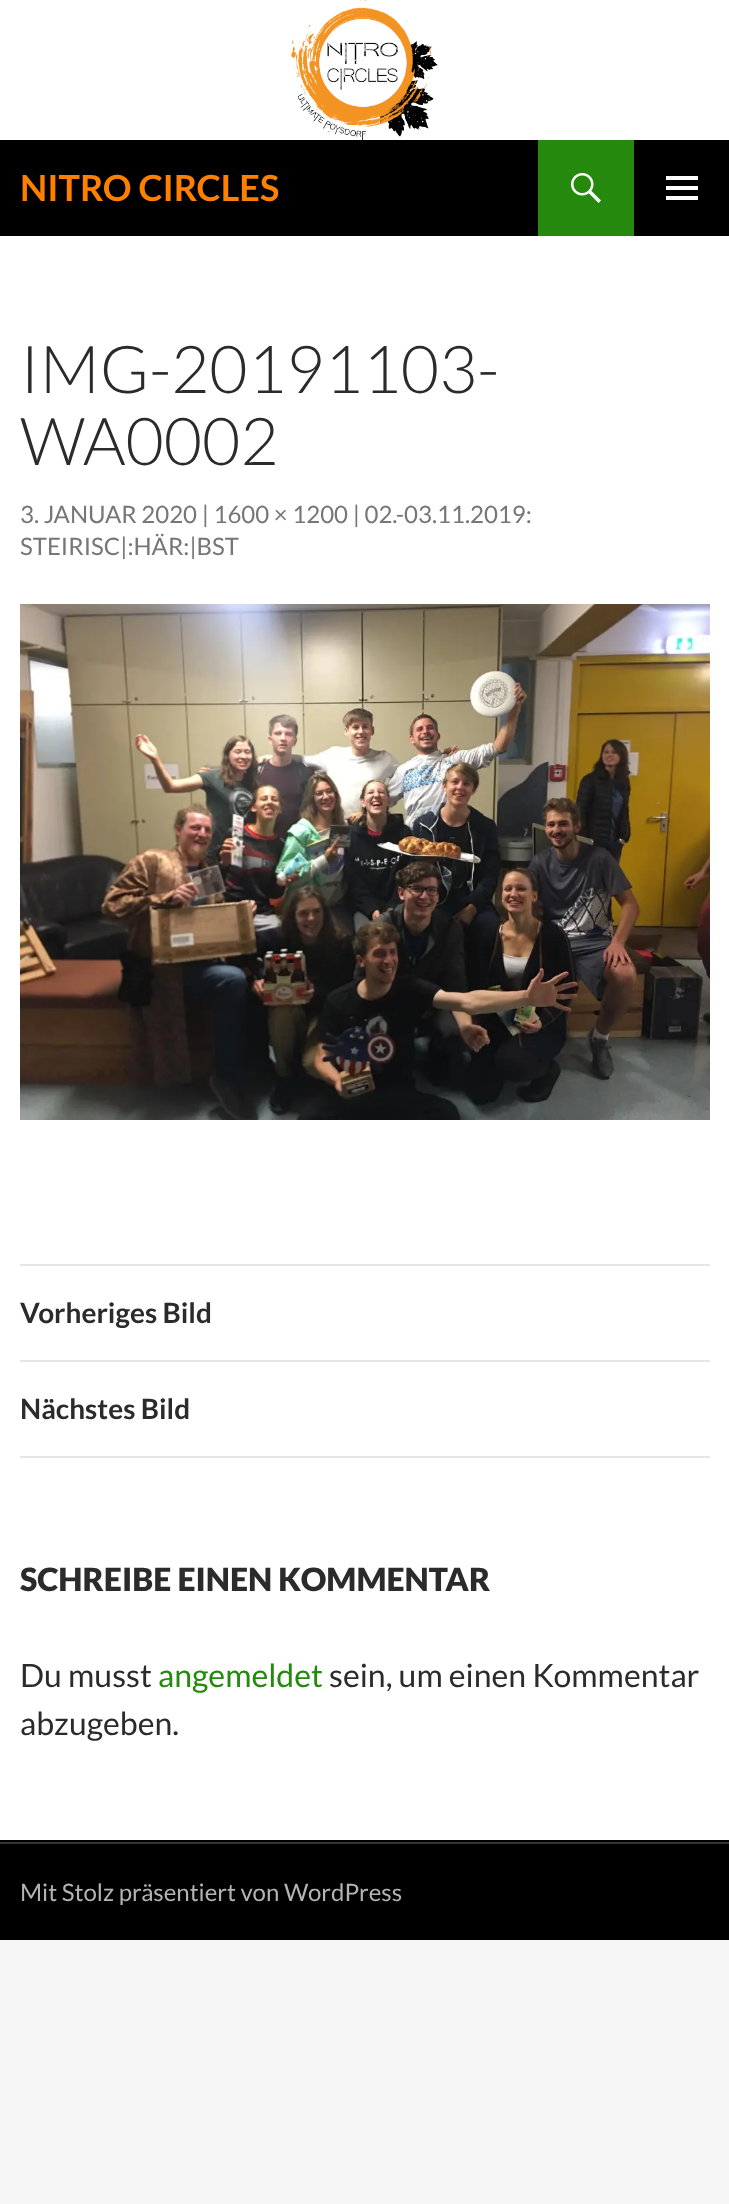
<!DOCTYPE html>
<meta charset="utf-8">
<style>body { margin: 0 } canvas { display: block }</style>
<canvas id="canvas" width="729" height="2204"></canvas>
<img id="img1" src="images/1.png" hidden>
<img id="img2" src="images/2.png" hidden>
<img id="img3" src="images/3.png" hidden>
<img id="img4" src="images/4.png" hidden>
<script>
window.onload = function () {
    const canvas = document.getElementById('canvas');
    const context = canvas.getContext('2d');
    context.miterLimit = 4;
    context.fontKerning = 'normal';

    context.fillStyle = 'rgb(245, 245, 245)';
    context.fillRect(0, 0, 729, 2204);
    context.fillStyle = 'rgb(255, 255, 255)';
    context.fillRect(0, 0, 729, 1840);
    context.drawImage(document.getElementById('img1'), 291, 0, 147, 140);
    context.fillStyle = 'rgb(0, 0, 0)';
    context.fillRect(0, 140, 729, 96);
    context.fillStyle = 'rgb(36, 137, 13)';
    context.fillRect(538, 140, 96, 96);
    context.drawImage(document.getElementById('img2'), 571, 173, 30, 30);
    context.drawImage(document.getElementById('img3'), 666, 176, 32, 24);
    context.drawImage(document.getElementById('img4'), 20, 604, 690, 516);
    context.fillStyle = 'rgb(230, 230, 230)';
    context.fillRect(20, 1264, 690, 2);
    context.fillRect(20, 1360, 690, 2);
    context.fillRect(20, 1456, 690, 2);
    context.fillStyle = 'rgb(0, 0, 0)';
    context.fillRect(0, 1840, 729, 2);
    context.fillStyle = 'rgb(51, 51, 51)';
    context.fillRect(0, 1842, 729, 2);
    context.fillStyle = 'rgb(0, 0, 0)';
    context.fillRect(0, 1844, 729, 96);
    context.font = 'bold 36px Lato';
    context.fillStyle = 'rgb(255, 128, 0)';
    context.fillText('NITRO CIRCLES', 20, 201);
    context.font = '300 66px Lato';
    context.fillStyle = 'rgb(43, 43, 43)';
    context.fillText('IMG-20191103-', 20, 393);
    context.fillText('WA0002', 20, 465);
    context.font = '24px Lato';
    context.fillStyle = 'rgb(118, 118, 118)';
    context.fillText('3. JANUAR 2020 | 1600 × 1200 | 02.-03.11.2019:', 20, 523);
    context.fillText('STEIRISC|:HÄR:|BST', 20, 555);
    context.font = 'bold 28px Lato';
    context.fillStyle = 'rgb(43, 43, 43)';
    context.fillText('Vorheriges Bild', 20, 1323);
    context.fillText('Nächstes Bild', 20, 1419);
    context.font = '900 32px Lato';
    context.fillText('SCHREIBE EINEN KOMMENTAR', 20, 1591);
    context.font = '32px Lato';
    context.fillText('Du musst', 20, 1687);
    context.fillStyle = 'rgb(36, 137, 13)';
    context.fillText('angemeldet', 158, 1687);
    context.fillStyle = 'rgb(43, 43, 43)';
    context.fillText('sein, um einen Kommentar', 329, 1687);
    context.fillText('abzugeben.', 20, 1735);
    context.font = '24px Lato';
    context.fillStyle = 'rgb(179, 179, 179)';
    context.fillText('Mit Stolz präsentiert von WordPress', 20, 1901);
};
</script>
